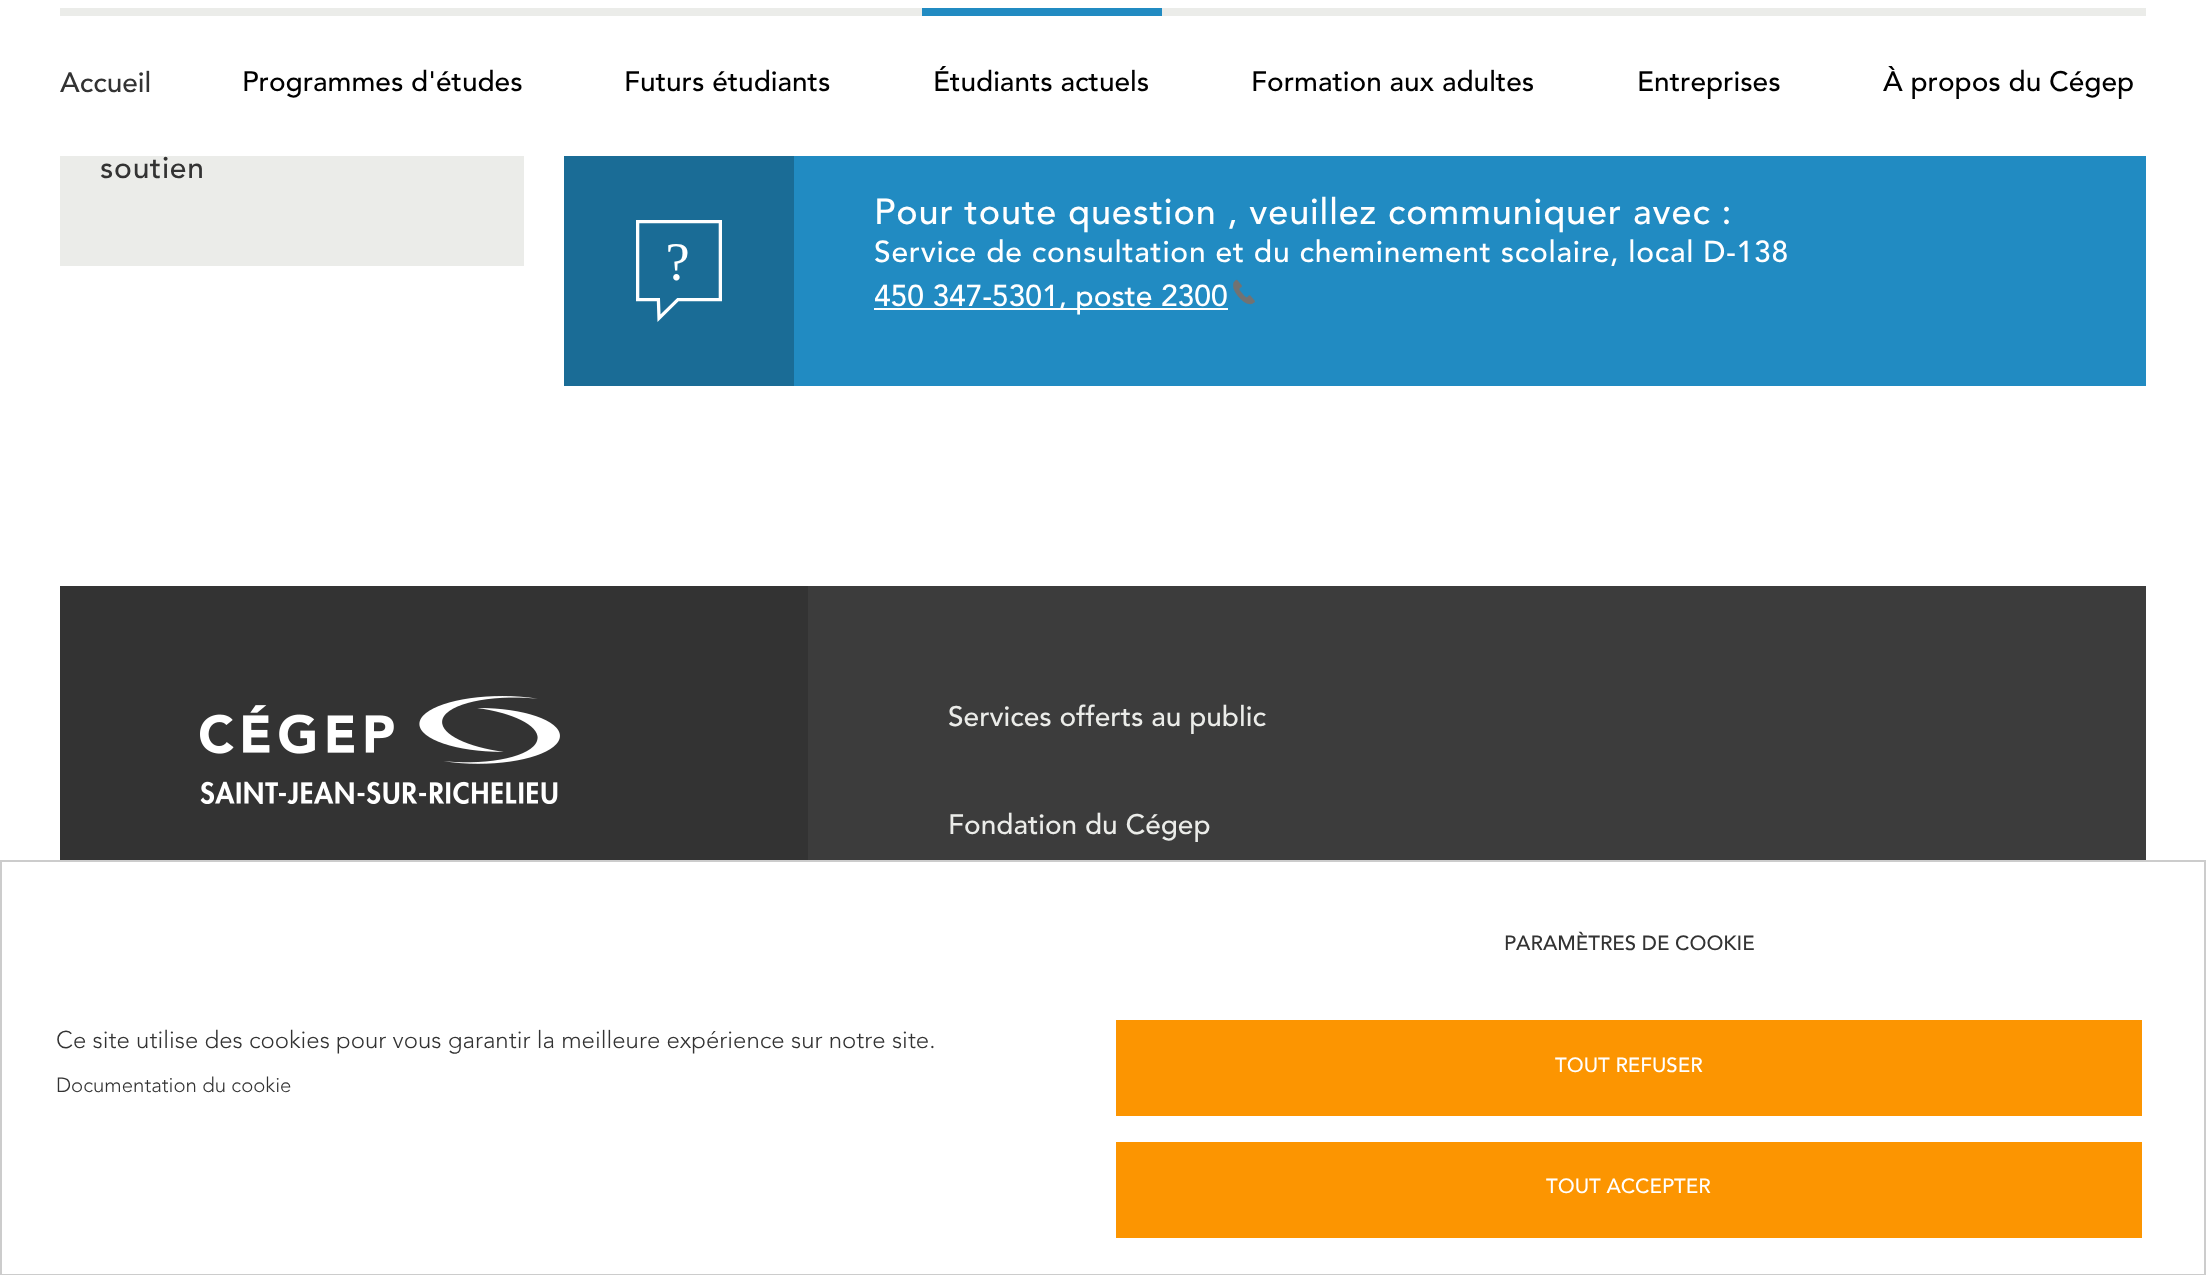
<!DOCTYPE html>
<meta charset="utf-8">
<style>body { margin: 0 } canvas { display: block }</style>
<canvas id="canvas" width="2206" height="1275"></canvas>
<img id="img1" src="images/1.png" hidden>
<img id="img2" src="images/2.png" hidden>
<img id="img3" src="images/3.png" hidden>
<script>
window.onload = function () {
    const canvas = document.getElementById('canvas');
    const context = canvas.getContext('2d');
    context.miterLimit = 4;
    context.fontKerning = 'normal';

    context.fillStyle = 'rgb(255, 255, 255)';
    context.fillRect(0, 0, 2206, 1275);
    context.fillStyle = 'rgb(235, 236, 233)';
    context.fillRect(60, 8, 2086, 8);
    context.fillStyle = 'rgb(33, 139, 194)';
    context.fillRect(922, 8, 240, 8);
    context.fillStyle = 'rgb(235, 236, 233)';
    context.fillRect(60, 156, 464, 110);
    context.fillStyle = 'rgb(33, 139, 194)';
    context.fillRect(794, 156, 1352, 230);
    context.fillStyle = 'rgb(26, 108, 150)';
    context.fillRect(564, 156, 230, 230);
    context.drawImage(document.getElementById('img1'), 636, 220, 86, 102);
    context.fillStyle = 'rgb(255, 255, 255)';
    context.fillRect(874, 308, 354, 2);
    context.drawImage(document.getElementById('img2'), 1233, 279, 22, 26);
    context.fillStyle = 'rgb(51, 51, 51)';
    context.fillRect(60, 586, 748, 274);
    context.drawImage(document.getElementById('img3'), 200, 696, 360, 108);
    context.fillStyle = 'rgb(60, 60, 60)';
    context.fillRect(808, 586, 1338, 274);
    context.strokeStyle = 'rgb(204, 204, 204)';
    context.lineWidth = 2;
    context.strokeRect(1, 861, 2204, 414);
    context.fillStyle = 'rgb(252, 149, 1)';
    context.fillRect(1116, 1020, 1026, 96);
    context.fillRect(1116, 1142, 1026, 96);
    context.font = '28px Avenir';
    context.fillStyle = 'rgb(51, 51, 51)';
    context.fillText('Accueil', 60, 92);
    context.fillStyle = 'rgb(0, 0, 0)';
    context.fillText('Programmes d\'études', 242, 91);
    context.fillText('Futurs étudiants', 624, 91);
    context.fillText('Étudiants actuels', 933, 91);
    context.fillText('Formation aux adultes', 1251, 91);
    context.fillText('Entreprises', 1637, 91);
    context.fillText('À propos du Cégep', 1883, 91);
    context.letterSpacing = '0.75px';
    context.font = '30px Avenir';
    context.fillStyle = 'rgb(51, 51, 51)';
    context.fillText('soutien', 100, 178);
    context.letterSpacing = '0.9px';
    context.font = '36px Avenir';
    context.fillStyle = 'rgb(255, 255, 255)';
    context.fillText('Pour toute question , veuillez communiquer avec :', 874, 224);
    context.letterSpacing = '0.75px';
    context.font = '30px Avenir';
    context.fillText('Service de consultation et du cheminement scolaire, local D-138', 874, 262);
    context.letterSpacing = '0px';
    context.fillText('450 347-5301, poste 2300', 874, 306);
    context.font = '28px Avenir';
    context.fillStyle = 'rgb(235, 236, 233)';
    context.fillText('Services offerts au public', 948, 726);
    context.fillText('Fondation du Cégep', 948, 834);
    context.font = '24px "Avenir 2"';
    context.fillStyle = 'rgb(51, 51, 51)';
    context.fillText('Ce site utilise des cookies pour vous garantir la meilleure expérience sur notre site.', 56, 1048);
    context.font = '20.4px "Avenir 2"';
    context.fillText('Documentation du cookie', 56, 1092);
    context.font = '20.4px Avenir';
    context.fillText('PARAMÈTRES DE COOKIE', 1504, 950);
    context.fillStyle = 'rgb(255, 255, 255)';
    context.fillText('TOUT REFUSER', 1555, 1072);
    context.fillText('TOUT ACCEPTER', 1546, 1193);
};
</script>
